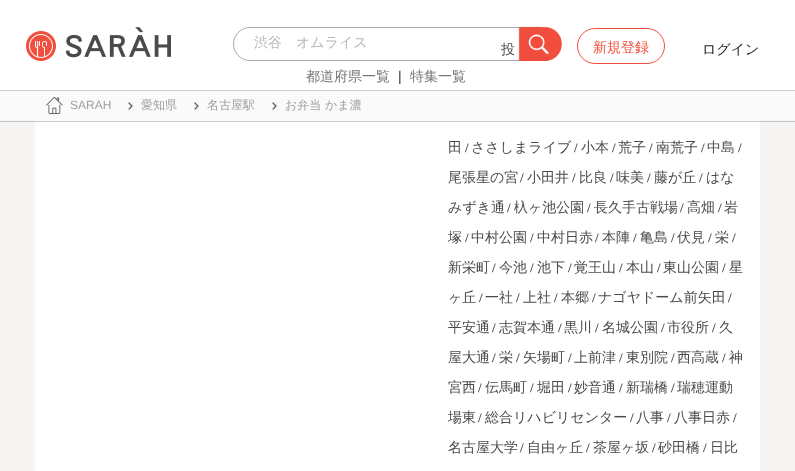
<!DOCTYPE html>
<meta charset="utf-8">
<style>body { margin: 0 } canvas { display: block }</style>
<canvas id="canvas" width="795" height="471"></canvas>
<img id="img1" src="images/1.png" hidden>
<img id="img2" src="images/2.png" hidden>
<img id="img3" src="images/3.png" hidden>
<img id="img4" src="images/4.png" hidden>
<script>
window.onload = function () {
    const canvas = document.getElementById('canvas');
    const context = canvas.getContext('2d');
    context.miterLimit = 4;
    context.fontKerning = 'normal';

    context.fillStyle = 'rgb(247, 244, 244)';
    context.fillRect(0, 0, 795, 471);
    context.fillStyle = 'rgba(0, 0, 0, 0.2)';
    context.filter = 'blur(0.5px)';
    context.beginPath();
    context.rect(35, -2, 725, 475);
    context.fill();
    context.filter = 'none';
    context.fillStyle = 'rgb(255, 255, 255)';
    context.fillRect(35, 121, 725, 350);
    context.fillStyle = 'rgba(0, 0, 0, 0.2)';
    context.filter = 'blur(0.5px)';
    context.beginPath();
    context.rect(0, 92, 795, 30);
    context.fill();
    context.filter = 'none';
    context.fillStyle = 'rgb(255, 255, 255)';
    context.fillRect(0, 0, 795, 90);
    context.fillStyle = 'rgb(205, 202, 202)';
    context.fillRect(0, 90, 795, 1);
    context.drawImage(document.getElementById('img1'), 26, 27, 145, 34);
    context.beginPath();
    context.roundRect(233.5, 27.5, 296, 33, [16.5, 0, 0, 16.5]);
    context.strokeStyle = 'rgb(170, 170, 170)';
    context.stroke();
    context.beginPath();
    context.roundRect(527.5, 27.5, 14, 33, 1.5);
    context.strokeStyle = 'rgb(118, 118, 118)';
    context.stroke();
    context.drawImage(document.getElementById('img2'), 518, 26, 44, 35);
    context.beginPath();
    context.roundRect(577.5, 28.5, 87, 35, 17.5);
    context.strokeStyle = 'rgb(242, 78, 61)';
    context.stroke();
    context.fillStyle = 'rgb(250, 250, 250)';
    context.fillRect(0, 91, 795, 30);
    context.drawImage(document.getElementById('img3'), 46, 96, 17, 18);
    context.drawImage(document.getElementById('img4'), 128, 102, 5, 9);
    context.drawImage(document.getElementById('img4'), 194, 102, 5, 9);
    context.drawImage(document.getElementById('img4'), 272, 102, 5, 9);
    context.font = '500 14px WenQuanYi Zen Hei';
    context.fillStyle = 'rgb(183, 183, 183)';
    context.fillText('渋谷　オムライス', 254, 47);
    context.fillStyle = 'rgb(119, 119, 119)';
    context.fillText('都道府県一覧', 306, 81);
    context.font = '14px Liberation Sans';
    context.fillStyle = 'rgb(51, 51, 51)';
    context.fillText('|', 398, 81);
    context.font = '500 14px WenQuanYi Zen Hei';
    context.fillStyle = 'rgb(119, 119, 119)';
    context.fillText('特集一覧', 410, 81);
    context.fillStyle = 'rgb(74, 74, 74)';
    context.fillText('投', 501, 54);
    context.fillStyle = 'rgb(242, 78, 61)';
    context.fillText('新規登録', 593, 52);
    context.fillStyle = 'rgb(33, 33, 33)';
    context.fillText('ログイン', 702, 54);
    context.font = '12px Liberation Sans';
    context.fillStyle = 'rgb(160, 160, 160)';
    context.fillText('SARAH', 70, 109);
    context.font = '500 12px WenQuanYi Zen Hei';
    context.fillText('愛知県', 141, 109);
    context.fillText('名古屋駅', 207, 109);
    context.fillText('お弁当 かま濃', 285, 109);
    context.font = '500 14px WenQuanYi Zen Hei';
    context.fillStyle = 'rgb(74, 74, 74)';
    context.fillText('田', 448, 152);
    context.font = 'bold 13px Liberation Serif';
    context.fillText('/', 465, 152);
    context.font = '500 14px WenQuanYi Zen Hei';
    context.fillText('ささしまライブ', 471, 152);
    context.font = 'bold 13px Liberation Serif';
    context.fillText('/', 574, 152);
    context.font = '500 14px WenQuanYi Zen Hei';
    context.fillText('小本', 581, 152);
    context.font = 'bold 13px Liberation Serif';
    context.fillText('/', 612, 152);
    context.font = '500 14px WenQuanYi Zen Hei';
    context.fillText('荒子', 618, 152);
    context.font = 'bold 13px Liberation Serif';
    context.fillText('/', 649, 152);
    context.font = '500 14px WenQuanYi Zen Hei';
    context.fillText('南荒子', 656, 152);
    context.font = 'bold 13px Liberation Serif';
    context.fillText('/', 701, 152);
    context.font = '500 14px WenQuanYi Zen Hei';
    context.fillText('中島', 707, 152);
    context.font = 'bold 13px Liberation Serif';
    context.fillText('/', 738, 152);
    context.font = '500 14px WenQuanYi Zen Hei';
    context.fillText('尾張星の宮', 448, 182);
    context.font = 'bold 13px Liberation Serif';
    context.fillText('/', 520, 182);
    context.font = '500 14px WenQuanYi Zen Hei';
    context.fillText('小田井', 527, 182);
    context.font = 'bold 13px Liberation Serif';
    context.fillText('/', 572, 182);
    context.font = '500 14px WenQuanYi Zen Hei';
    context.fillText('比良', 579, 182);
    context.font = 'bold 13px Liberation Serif';
    context.fillText('/', 610, 182);
    context.font = '500 14px WenQuanYi Zen Hei';
    context.fillText('味美', 616, 182);
    context.font = 'bold 13px Liberation Serif';
    context.fillText('/', 647, 182);
    context.font = '500 14px WenQuanYi Zen Hei';
    context.fillText('藤が丘', 654, 182);
    context.font = 'bold 13px Liberation Serif';
    context.fillText('/', 699, 182);
    context.font = '500 14px WenQuanYi Zen Hei';
    context.fillText('はな', 706, 182);
    context.fillText('みずき通', 448, 212);
    context.font = 'bold 13px Liberation Serif';
    context.fillText('/', 507, 212);
    context.font = '500 14px WenQuanYi Zen Hei';
    context.fillText('杁ヶ池公園', 514, 212);
    context.font = 'bold 13px Liberation Serif';
    context.fillText('/', 587, 212);
    context.font = '500 14px WenQuanYi Zen Hei';
    context.fillText('長久手古戦場', 594, 212);
    context.font = 'bold 13px Liberation Serif';
    context.fillText('/', 680, 212);
    context.font = '500 14px WenQuanYi Zen Hei';
    context.fillText('高畑', 687, 212);
    context.font = 'bold 13px Liberation Serif';
    context.fillText('/', 718, 212);
    context.font = '500 14px WenQuanYi Zen Hei';
    context.fillText('岩', 724, 212);
    context.fillText('塚', 448, 242);
    context.font = 'bold 13px Liberation Serif';
    context.fillText('/', 465, 242);
    context.font = '500 14px WenQuanYi Zen Hei';
    context.fillText('中村公園', 471, 242);
    context.font = 'bold 13px Liberation Serif';
    context.fillText('/', 530, 242);
    context.font = '500 14px WenQuanYi Zen Hei';
    context.fillText('中村日赤', 537, 242);
    context.font = 'bold 13px Liberation Serif';
    context.fillText('/', 595, 242);
    context.font = '500 14px WenQuanYi Zen Hei';
    context.fillText('本陣', 602, 242);
    context.font = 'bold 13px Liberation Serif';
    context.fillText('/', 633, 242);
    context.font = '500 14px WenQuanYi Zen Hei';
    context.fillText('亀島', 640, 242);
    context.font = 'bold 13px Liberation Serif';
    context.fillText('/', 671, 242);
    context.font = '500 14px WenQuanYi Zen Hei';
    context.fillText('伏見', 677, 242);
    context.font = 'bold 13px Liberation Serif';
    context.fillText('/', 708, 242);
    context.font = '500 14px WenQuanYi Zen Hei';
    context.fillText('栄', 715, 242);
    context.font = 'bold 13px Liberation Serif';
    context.fillText('/', 732, 242);
    context.font = '500 14px WenQuanYi Zen Hei';
    context.fillText('新栄町', 448, 272);
    context.font = 'bold 13px Liberation Serif';
    context.fillText('/', 492, 272);
    context.font = '500 14px WenQuanYi Zen Hei';
    context.fillText('今池', 499, 272);
    context.font = 'bold 13px Liberation Serif';
    context.fillText('/', 530, 272);
    context.font = '500 14px WenQuanYi Zen Hei';
    context.fillText('池下', 537, 272);
    context.font = 'bold 13px Liberation Serif';
    context.fillText('/', 568, 272);
    context.font = '500 14px WenQuanYi Zen Hei';
    context.fillText('覚王山', 574, 272);
    context.font = 'bold 13px Liberation Serif';
    context.fillText('/', 619, 272);
    context.font = '500 14px WenQuanYi Zen Hei';
    context.fillText('本山', 626, 272);
    context.font = 'bold 13px Liberation Serif';
    context.fillText('/', 657, 272);
    context.font = '500 14px WenQuanYi Zen Hei';
    context.fillText('東山公園', 663, 272);
    context.font = 'bold 13px Liberation Serif';
    context.fillText('/', 722, 272);
    context.font = '500 14px WenQuanYi Zen Hei';
    context.fillText('星', 729, 272);
    context.fillText('ヶ丘', 448, 302);
    context.font = 'bold 13px Liberation Serif';
    context.fillText('/', 479, 302);
    context.font = '500 14px WenQuanYi Zen Hei';
    context.fillText('一社', 485, 302);
    context.font = 'bold 13px Liberation Serif';
    context.fillText('/', 516, 302);
    context.font = '500 14px WenQuanYi Zen Hei';
    context.fillText('上社', 523, 302);
    context.font = 'bold 13px Liberation Serif';
    context.fillText('/', 554, 302);
    context.font = '500 14px WenQuanYi Zen Hei';
    context.fillText('本郷', 561, 302);
    context.font = 'bold 13px Liberation Serif';
    context.fillText('/', 592, 302);
    context.font = '500 14px WenQuanYi Zen Hei';
    context.fillText('ナゴヤドーム前矢田', 598, 302);
    context.font = 'bold 13px Liberation Serif';
    context.fillText('/', 728, 302);
    context.font = '500 14px WenQuanYi Zen Hei';
    context.fillText('平安通', 448, 332);
    context.font = 'bold 13px Liberation Serif';
    context.fillText('/', 492, 332);
    context.font = '500 14px WenQuanYi Zen Hei';
    context.fillText('志賀本通', 499, 332);
    context.font = 'bold 13px Liberation Serif';
    context.fillText('/', 558, 332);
    context.font = '500 14px WenQuanYi Zen Hei';
    context.fillText('黒川', 564, 332);
    context.font = 'bold 13px Liberation Serif';
    context.fillText('/', 595, 332);
    context.font = '500 14px WenQuanYi Zen Hei';
    context.fillText('名城公園', 602, 332);
    context.font = 'bold 13px Liberation Serif';
    context.fillText('/', 661, 332);
    context.font = '500 14px WenQuanYi Zen Hei';
    context.fillText('市役所', 667, 332);
    context.font = 'bold 13px Liberation Serif';
    context.fillText('/', 712, 332);
    context.font = '500 14px WenQuanYi Zen Hei';
    context.fillText('久', 719, 332);
    context.fillText('屋大通', 448, 362);
    context.font = 'bold 13px Liberation Serif';
    context.fillText('/', 492, 362);
    context.font = '500 14px WenQuanYi Zen Hei';
    context.fillText('栄', 499, 362);
    context.font = 'bold 13px Liberation Serif';
    context.fillText('/', 516, 362);
    context.font = '500 14px WenQuanYi Zen Hei';
    context.fillText('矢場町', 523, 362);
    context.font = 'bold 13px Liberation Serif';
    context.fillText('/', 568, 362);
    context.font = '500 14px WenQuanYi Zen Hei';
    context.fillText('上前津', 574, 362);
    context.font = 'bold 13px Liberation Serif';
    context.fillText('/', 619, 362);
    context.font = '500 14px WenQuanYi Zen Hei';
    context.fillText('東別院', 626, 362);
    context.font = 'bold 13px Liberation Serif';
    context.fillText('/', 671, 362);
    context.font = '500 14px WenQuanYi Zen Hei';
    context.fillText('西高蔵', 677, 362);
    context.font = 'bold 13px Liberation Serif';
    context.fillText('/', 722, 362);
    context.font = '500 14px WenQuanYi Zen Hei';
    context.fillText('神', 729, 362);
    context.fillText('宮西', 448, 392);
    context.font = 'bold 13px Liberation Serif';
    context.fillText('/', 478, 392);
    context.font = '500 14px WenQuanYi Zen Hei';
    context.fillText('伝馬町', 485, 392);
    context.font = 'bold 13px Liberation Serif';
    context.fillText('/', 530, 392);
    context.font = '500 14px WenQuanYi Zen Hei';
    context.fillText('堀田', 537, 392);
    context.font = 'bold 13px Liberation Serif';
    context.fillText('/', 568, 392);
    context.font = '500 14px WenQuanYi Zen Hei';
    context.fillText('妙音通', 574, 392);
    context.font = 'bold 13px Liberation Serif';
    context.fillText('/', 619, 392);
    context.font = '500 14px WenQuanYi Zen Hei';
    context.fillText('新瑞橋', 626, 392);
    context.font = 'bold 13px Liberation Serif';
    context.fillText('/', 671, 392);
    context.font = '500 14px WenQuanYi Zen Hei';
    context.fillText('瑞穂運動', 677, 392);
    context.fillText('場東', 448, 422);
    context.font = 'bold 13px Liberation Serif';
    context.fillText('/', 478, 422);
    context.font = '500 14px WenQuanYi Zen Hei';
    context.fillText('総合リハビリセンター', 485, 422);
    context.font = 'bold 13px Liberation Serif';
    context.fillText('/', 630, 422);
    context.font = '500 14px WenQuanYi Zen Hei';
    context.fillText('八事', 636, 422);
    context.font = 'bold 13px Liberation Serif';
    context.fillText('/', 667, 422);
    context.font = '500 14px WenQuanYi Zen Hei';
    context.fillText('八事日赤', 674, 422);
    context.font = 'bold 13px Liberation Serif';
    context.fillText('/', 733, 422);
    context.font = '500 14px WenQuanYi Zen Hei';
    context.fillText('名古屋大学', 448, 452);
    context.font = 'bold 13px Liberation Serif';
    context.fillText('/', 520, 452);
    context.font = '500 14px WenQuanYi Zen Hei';
    context.fillText('自由ヶ丘', 527, 452);
    context.font = 'bold 13px Liberation Serif';
    context.fillText('/', 586, 452);
    context.font = '500 14px WenQuanYi Zen Hei';
    context.fillText('茶屋ヶ坂', 593, 452);
    context.font = 'bold 13px Liberation Serif';
    context.fillText('/', 652, 452);
    context.font = '500 14px WenQuanYi Zen Hei';
    context.fillText('砂田橋', 658, 452);
    context.font = 'bold 13px Liberation Serif';
    context.fillText('/', 703, 452);
    context.font = '500 14px WenQuanYi Zen Hei';
    context.fillText('日比', 710, 452);
};
</script>
